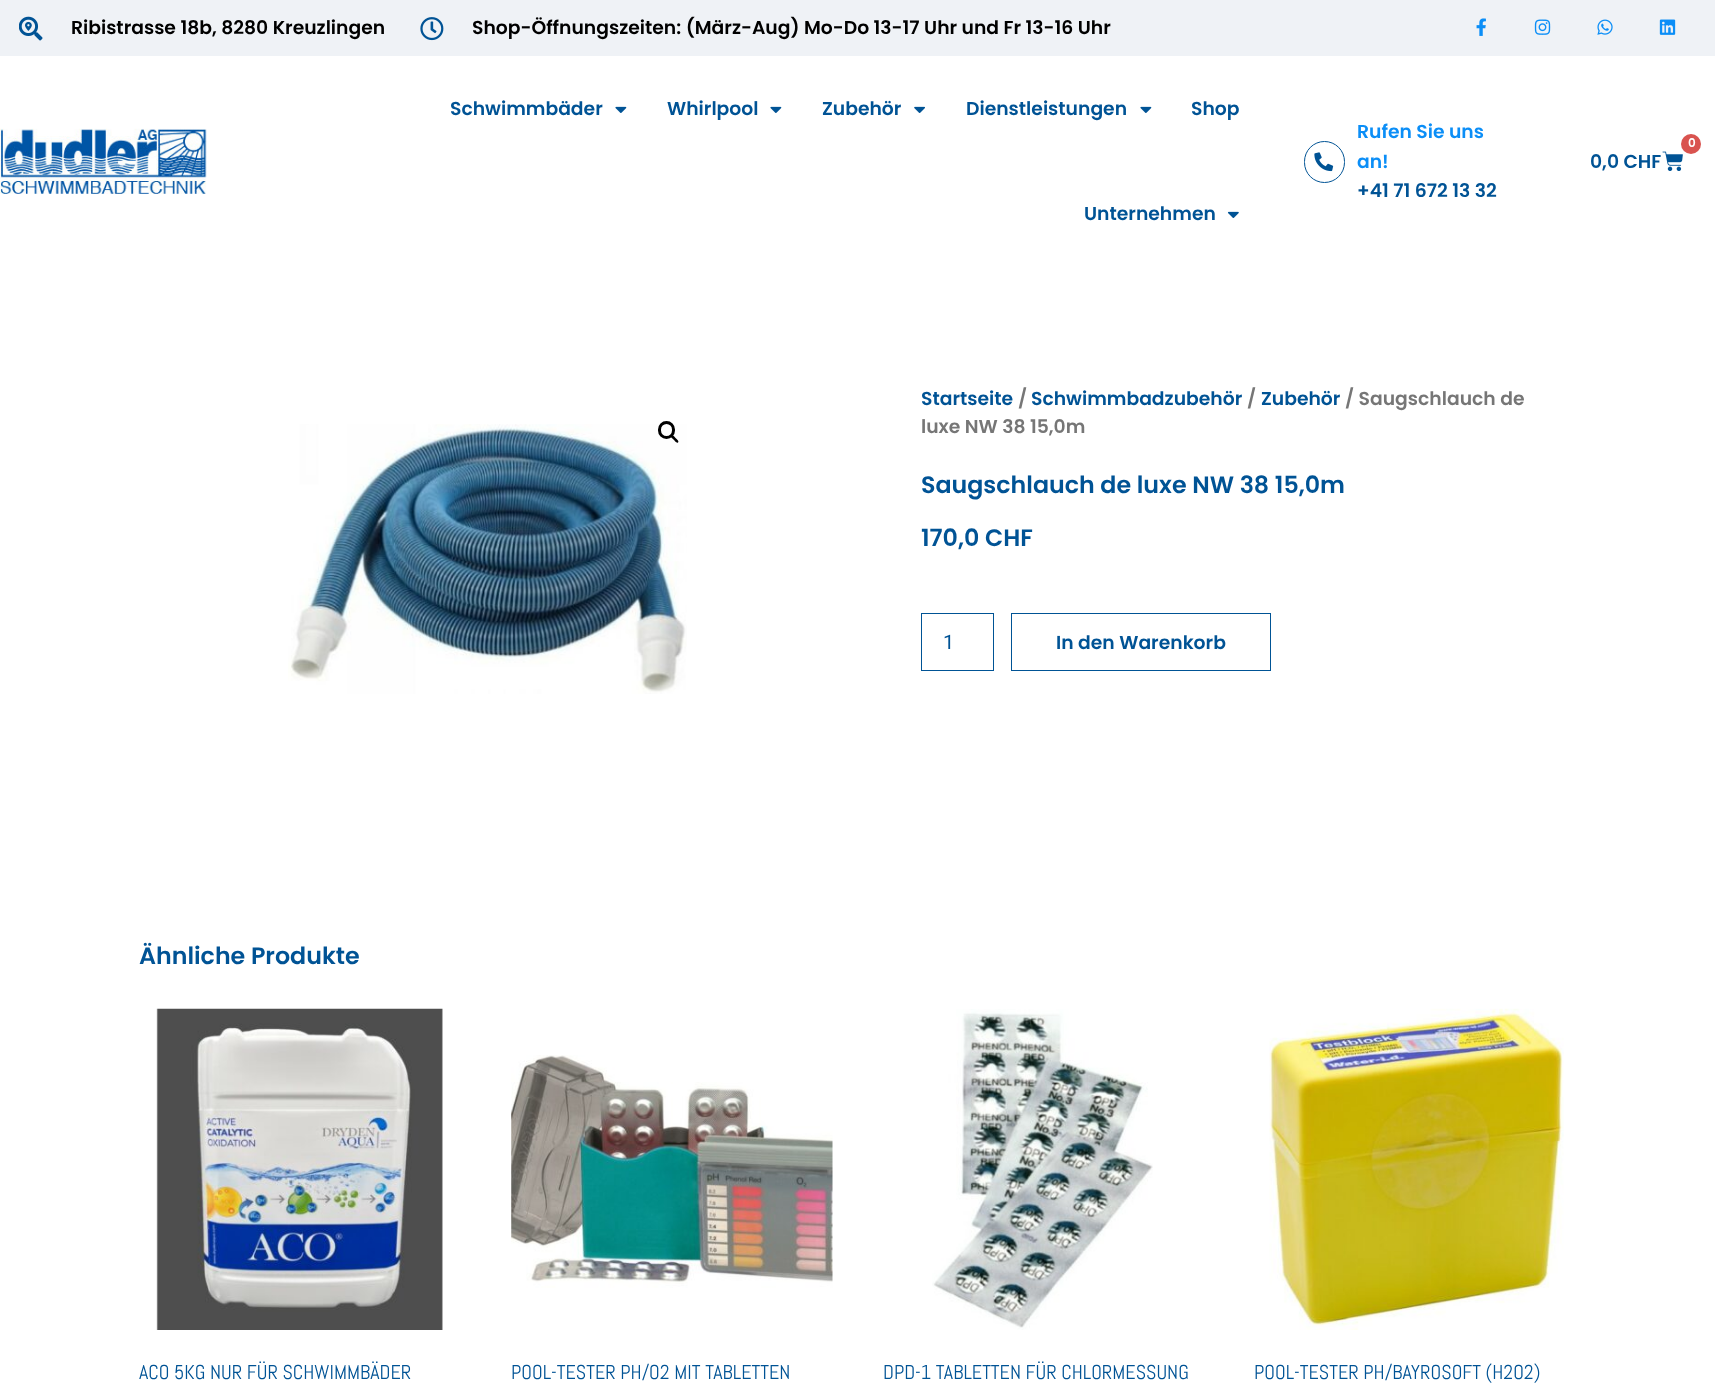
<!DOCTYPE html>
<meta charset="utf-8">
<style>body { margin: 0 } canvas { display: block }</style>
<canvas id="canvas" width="1715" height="1384"></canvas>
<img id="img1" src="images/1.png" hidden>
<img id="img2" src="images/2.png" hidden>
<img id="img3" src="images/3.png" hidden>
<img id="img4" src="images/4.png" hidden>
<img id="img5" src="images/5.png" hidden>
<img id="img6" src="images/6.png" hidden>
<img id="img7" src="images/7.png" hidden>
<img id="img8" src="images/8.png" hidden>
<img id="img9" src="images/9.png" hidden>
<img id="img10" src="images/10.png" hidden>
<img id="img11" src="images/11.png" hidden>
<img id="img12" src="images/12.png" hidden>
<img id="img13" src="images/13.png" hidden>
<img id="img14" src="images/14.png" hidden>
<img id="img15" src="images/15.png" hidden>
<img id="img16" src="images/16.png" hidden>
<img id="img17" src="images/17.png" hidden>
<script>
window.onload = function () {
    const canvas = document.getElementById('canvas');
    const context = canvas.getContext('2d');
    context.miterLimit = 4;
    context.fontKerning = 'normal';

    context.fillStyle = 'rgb(255, 255, 255)';
    context.fillRect(0, 0, 1715, 1384);
    context.fillStyle = 'rgb(239, 242, 246)';
    context.fillRect(0, 0, 1715, 56);
    context.drawImage(document.getElementById('img1'), 19, 16, 24, 25);
    context.drawImage(document.getElementById('img2'), 420, 17, 24, 24);
    context.drawImage(document.getElementById('img3'), 1476, 18, 10, 18);
    context.drawImage(document.getElementById('img4'), 1534, 19, 17, 16);
    context.drawImage(document.getElementById('img5'), 1597, 19, 16, 16);
    context.drawImage(document.getElementById('img6'), 1659, 19, 17, 16);
    context.drawImage(document.getElementById('img7'), 0, 128, 207, 66);
    context.drawImage(document.getElementById('img8'), 615, 106, 12, 7);
    context.drawImage(document.getElementById('img8'), 770, 106, 12, 7);
    context.drawImage(document.getElementById('img9'), 914, 106, 11, 7);
    context.drawImage(document.getElementById('img8'), 1140, 106, 12, 7);
    context.drawImage(document.getElementById('img10'), 1227, 211, 12, 7);
    context.beginPath();
    context.roundRect(1304.5, 141.5, 40, 41, 20);
    context.strokeStyle = 'rgb(0, 83, 149)';
    context.stroke();
    context.drawImage(document.getElementById('img11'), 1314, 152, 20, 20);
    context.drawImage(document.getElementById('img12'), 1662, 151, 21, 20);
    context.fillStyle = 'rgb(217, 83, 79)';
    context.beginPath();
    context.arc(1691, 144, 10, 0, 2 * Math.PI);
    context.fill();
    context.drawImage(document.getElementById('img13'), 288, 424, 399, 270);
    context.beginPath();
    context.roundRect(659.5, 422.5, 14, 15, 7);
    context.strokeStyle = 'rgb(0, 0, 0)';
    context.lineWidth = 3;
    context.stroke();
    context.fillStyle = 'rgb(0, 0, 0)';
    context.beginPath();
    context.moveTo(671, 435);
    context.bezierCurveTo(672.5, 434, 674.5, 437, 675.5, 438);
    context.bezierCurveTo(676, 438.5, 679.5, 441, 678, 442.5);
    context.bezierCurveTo(676.5, 443.5, 674.5, 440.5, 673.5, 439.5);
    context.bezierCurveTo(673, 439, 669.5, 436.5, 671, 435);
    context.closePath();
    context.fill();
    context.strokeStyle = 'rgb(0, 83, 149)';
    context.lineWidth = 1;
    context.strokeRect(921.5, 613.5, 72, 57);
    context.strokeRect(1011.5, 613.5, 259, 57);
    context.drawImage(document.getElementById('img14'), 156, 1008, 287, 322);
    context.drawImage(document.getElementById('img15'), 511, 1055, 322, 233);
    context.drawImage(document.getElementById('img16'), 932, 1009, 221, 321);
    context.drawImage(document.getElementById('img17'), 1269, 1008, 295, 322);
    context.font = '600 18.75px Poppins';
    context.fillText('Ribistrasse 18b, 8280 Kreuzlingen', 71, 34);
    context.fillText('Shop-Öffnungszeiten: (März-Aug) Mo-Do 13-17 Uhr und Fr 13-16 Uhr', 472, 34);
    context.fillStyle = 'rgb(0, 83, 149)';
    context.fillText('Schwimmbäder', 450, 115);
    context.fillText('Whirlpool', 667, 115);
    context.fillText('Zubehör', 822, 115);
    context.fillText('Dienstleistungen', 966, 115);
    context.fillText('Shop', 1191, 115);
    context.fillText('Unternehmen', 1084, 220);
    context.fillStyle = 'rgb(11, 142, 247)';
    context.fillText('Rufen Sie uns', 1357, 138);
    context.fillText('an!', 1357, 168);
    context.fillStyle = 'rgb(0, 83, 149)';
    context.fillText('+41 71 672 13 32', 1357, 197);
    context.font = '600 12px Poppins';
    context.fillStyle = 'rgb(255, 255, 255)';
    context.fillText('0', 1688, 147);
    context.font = '600 18.75px Poppins';
    context.fillStyle = 'rgb(0, 83, 149)';
    context.fillText('0,0 CHF', 1590, 168);
    context.fillText('Startseite', 921, 405);
    context.fillStyle = 'rgb(118, 118, 118)';
    context.fillText('/', 1018, 405);
    context.fillStyle = 'rgb(0, 83, 149)';
    context.fillText('Schwimmbadzubehör', 1031, 405);
    context.fillStyle = 'rgb(118, 118, 118)';
    context.fillText('/', 1247, 405);
    context.fillStyle = 'rgb(0, 83, 149)';
    context.fillText('Zubehör', 1261, 405);
    context.fillStyle = 'rgb(118, 118, 118)';
    context.fillText('/ Saugschlauch de', 1345, 405);
    context.fillText('luxe NW 38 15,0m', 921, 433);
    context.font = '600 23.75px Poppins';
    context.fillStyle = 'rgb(0, 83, 149)';
    context.fillText('Saugschlauch de luxe NW 38 15,0m', 921, 493);
    context.fillText('170,0 CHF', 921, 546);
    context.font = '20px Roboto';
    context.fillText('1', 943, 649);
    context.font = '600 18.75px Poppins';
    context.fillText('In den Warenkorb', 1056, 649);
    context.font = '600 23.75px Poppins';
    context.fillText('Ähnliche Produkte', 139, 964);
    context.font = '20px Abel';
    context.fillText('ACO 5KG NUR FÜR SCHWIMMBÄDER', 139, 1379);
    context.fillText('POOL-TESTER PH/O2 MIT TABLETTEN', 511, 1379);
    context.fillText('DPD-1 TABLETTEN FÜR CHLORMESSUNG', 883, 1379);
    context.fillText('POOL-TESTER PH/BAYROSOFT (H2O2)', 1254, 1379);
};
</script>
